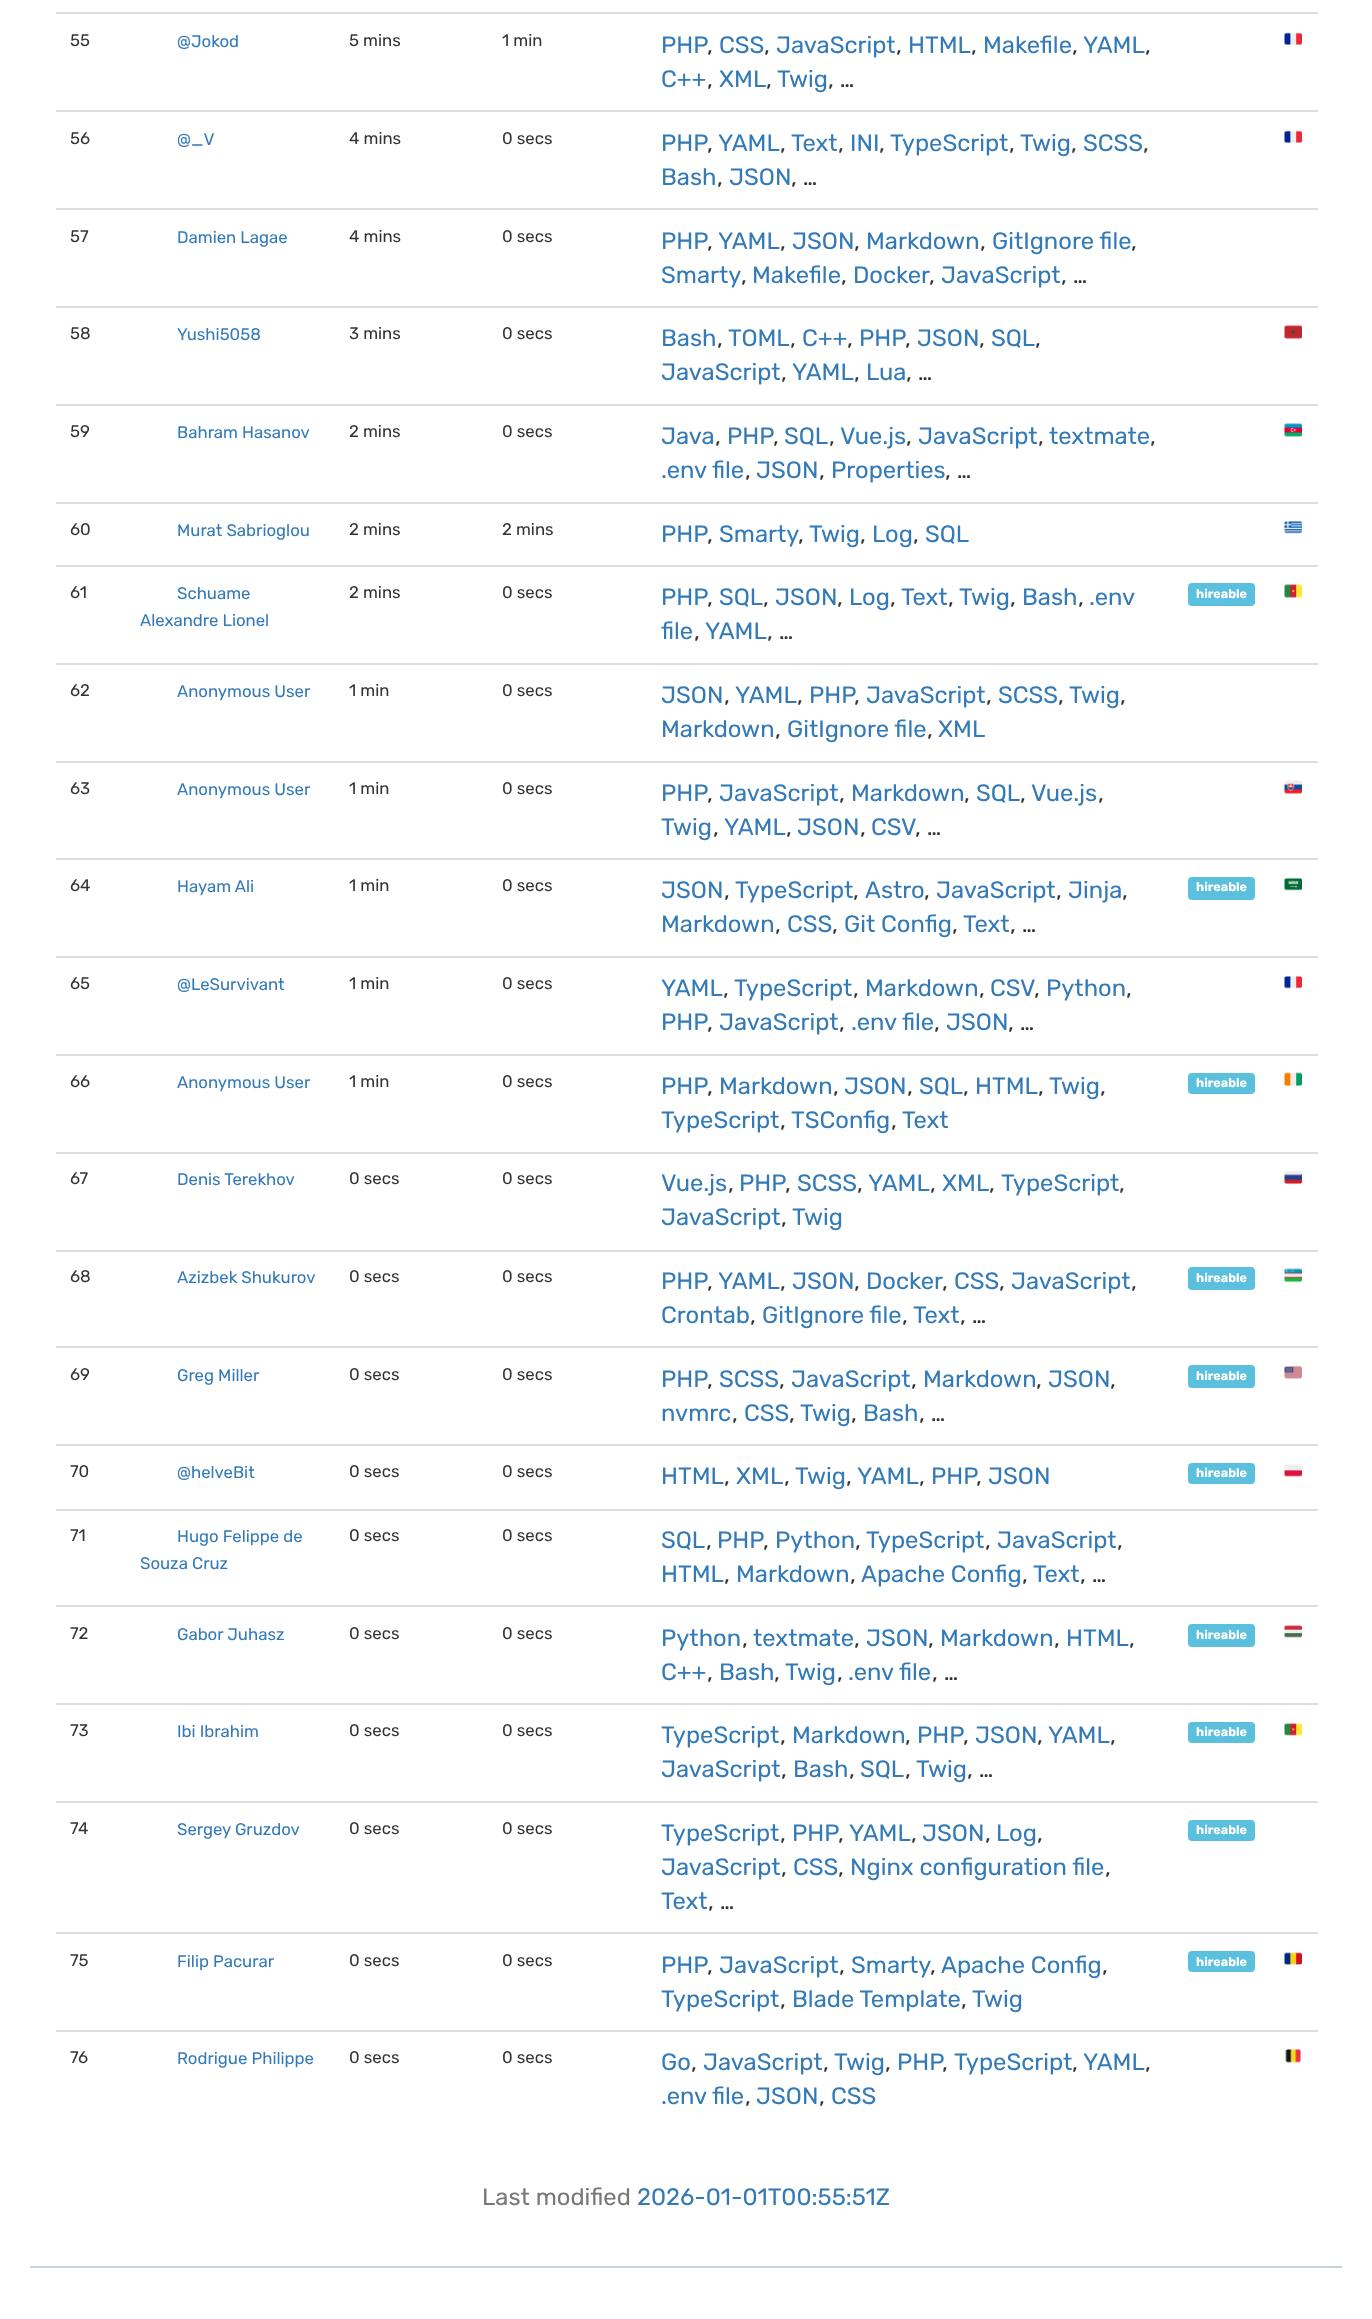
<!DOCTYPE html>
<meta charset="utf-8">
<style>body { margin: 0 } canvas { display: block }</style>
<canvas id="canvas" width="1372" height="2319"></canvas>
<img id="img1" src="images/1.png" hidden>
<img id="img2" src="images/2.png" hidden>
<img id="img3" src="images/3.png" hidden>
<img id="img4" src="images/4.png" hidden>
<img id="img5" src="images/5.png" hidden>
<img id="img6" src="images/6.png" hidden>
<img id="img7" src="images/7.png" hidden>
<img id="img8" src="images/8.png" hidden>
<img id="img9" src="images/9.png" hidden>
<img id="img10" src="images/10.png" hidden>
<img id="img11" src="images/11.png" hidden>
<img id="img12" src="images/12.png" hidden>
<img id="img13" src="images/13.png" hidden>
<img id="img14" src="images/14.png" hidden>
<img id="img15" src="images/15.png" hidden>
<img id="img16" src="images/16.png" hidden>
<img id="img17" src="images/17.png" hidden>
<script>
window.onload = function () {
    const canvas = document.getElementById('canvas');
    const context = canvas.getContext('2d');
    context.miterLimit = 4;
    context.fontKerning = 'normal';

    context.fillStyle = 'rgb(255, 255, 255)';
    context.fillRect(0, 0, 1372, 2319);
    context.fillStyle = 'rgb(221, 221, 221)';
    context.fillRect(56, 12, 1262, 2);
    context.drawImage(document.getElementById('img1'), 1284, 32, 18, 13);
    context.fillRect(56, 110, 1262, 2);
    context.drawImage(document.getElementById('img1'), 1284, 130, 18, 13);
    context.fillRect(56, 208, 1262, 2);
    context.fillRect(56, 306, 1262, 2);
    context.drawImage(document.getElementById('img2'), 1284, 325, 18, 14);
    context.fillRect(56, 404, 1262, 2);
    context.drawImage(document.getElementById('img3'), 1284, 423, 18, 14);
    context.fillRect(56, 502, 1262, 2);
    context.drawImage(document.getElementById('img4'), 1284, 521, 18, 13);
    context.fillRect(56, 565, 1262, 2);
    context.drawImage(document.getElementById('img5'), 1284, 584, 18, 14);
    context.fillStyle = 'rgb(91, 192, 222)';
    context.beginPath();
    context.roundRect(1188, 583, 67, 23, 4);
    context.fill();
    context.fillStyle = 'rgb(221, 221, 221)';
    context.fillRect(56, 663, 1262, 2);
    context.fillRect(56, 761, 1262, 2);
    context.drawImage(document.getElementById('img6'), 1284, 780, 18, 14);
    context.fillRect(56, 858, 1262, 2);
    context.drawImage(document.getElementById('img7'), 1284, 878, 18, 13);
    context.fillStyle = 'rgb(91, 192, 222)';
    context.beginPath();
    context.roundRect(1188, 877, 67, 23, 4);
    context.fill();
    context.fillStyle = 'rgb(221, 221, 221)';
    context.fillRect(56, 956, 1262, 2);
    context.drawImage(document.getElementById('img8'), 1284, 976, 18, 13);
    context.fillRect(56, 1054, 1262, 2);
    context.drawImage(document.getElementById('img9'), 1284, 1072, 18, 15);
    context.fillStyle = 'rgb(91, 192, 222)';
    context.beginPath();
    context.roundRect(1188, 1073, 67, 21, 4);
    context.fill();
    context.fillStyle = 'rgb(221, 221, 221)';
    context.fillRect(56, 1152, 1262, 2);
    context.drawImage(document.getElementById('img10'), 1284, 1171, 18, 14);
    context.fillRect(56, 1250, 1262, 2);
    context.drawImage(document.getElementById('img11'), 1284, 1268, 18, 15);
    context.fillStyle = 'rgb(91, 192, 222)';
    context.beginPath();
    context.roundRect(1188, 1267, 67, 23, 4);
    context.fill();
    context.fillStyle = 'rgb(221, 221, 221)';
    context.fillRect(56, 1346, 1262, 2);
    context.drawImage(document.getElementById('img12'), 1284, 1366, 18, 13);
    context.fillStyle = 'rgb(91, 192, 222)';
    context.beginPath();
    context.roundRect(1188, 1365, 67, 23, 4);
    context.fill();
    context.fillStyle = 'rgb(221, 221, 221)';
    context.fillRect(56, 1444, 1262, 2);
    context.drawImage(document.getElementById('img13'), 1284, 1464, 18, 13);
    context.fillStyle = 'rgb(91, 192, 222)';
    context.beginPath();
    context.roundRect(1188, 1463, 67, 21, 4);
    context.fill();
    context.fillStyle = 'rgb(221, 221, 221)';
    context.fillRect(56, 1509, 1262, 2);
    context.fillRect(56, 1605, 1262, 2);
    context.drawImage(document.getElementById('img14'), 1284, 1625, 18, 13);
    context.fillStyle = 'rgb(91, 192, 222)';
    context.beginPath();
    context.roundRect(1188, 1624, 67, 23, 4);
    context.fill();
    context.fillStyle = 'rgb(221, 221, 221)';
    context.fillRect(56, 1703, 1262, 2);
    context.drawImage(document.getElementById('img15'), 1284, 1723, 18, 13);
    context.fillStyle = 'rgb(91, 192, 222)';
    context.beginPath();
    context.roundRect(1188, 1722, 67, 21, 4);
    context.fill();
    context.fillStyle = 'rgb(221, 221, 221)';
    context.fillRect(56, 1801, 1262, 2);
    context.fillStyle = 'rgb(91, 192, 222)';
    context.beginPath();
    context.roundRect(1188, 1820, 67, 21, 4);
    context.fill();
    context.fillStyle = 'rgb(221, 221, 221)';
    context.fillRect(56, 1932, 1262, 2);
    context.drawImage(document.getElementById('img16'), 1284, 1952, 18, 13);
    context.fillStyle = 'rgb(91, 192, 222)';
    context.beginPath();
    context.roundRect(1188, 1951, 67, 21, 4);
    context.fill();
    context.fillStyle = 'rgb(221, 221, 221)';
    context.fillRect(56, 2030, 1262, 2);
    context.drawImage(document.getElementById('img17'), 1285, 2049, 17, 14);
    context.fillStyle = 'rgb(201, 211, 220)';
    context.fillRect(30, 2266, 1312, 2);
    context.font = '16.75px Rubik';
    context.fillStyle = 'rgb(51, 51, 51)';
    context.fillText('55', 70, 46);
    context.fillStyle = 'rgb(51, 122, 183)';
    context.fillText('@Jokod', 177, 47);
    context.fillStyle = 'rgb(51, 51, 51)';
    context.fillText('5 mins', 349, 46);
    context.fillText('1 min', 502, 46);
    context.font = '23.75px Rubik';
    context.fillStyle = 'rgb(51, 122, 183)';
    context.fillText('PHP', 661, 53);
    context.fillStyle = 'rgb(51, 51, 51)';
    context.fillText(',', 707, 53);
    context.fillStyle = 'rgb(51, 122, 183)';
    context.fillText('CSS', 719, 53);
    context.fillStyle = 'rgb(51, 51, 51)';
    context.fillText(',', 764, 53);
    context.fillStyle = 'rgb(51, 122, 183)';
    context.fillText('JavaScript', 776, 53);
    context.fillStyle = 'rgb(51, 51, 51)';
    context.fillText(',', 896, 53);
    context.fillStyle = 'rgb(51, 122, 183)';
    context.fillText('HTML', 908, 53);
    context.fillStyle = 'rgb(51, 51, 51)';
    context.fillText(',', 971, 53);
    context.fillStyle = 'rgb(51, 122, 183)';
    context.fillText('Makefile', 983, 53);
    context.fillStyle = 'rgb(51, 51, 51)';
    context.fillText(',', 1072, 53);
    context.fillStyle = 'rgb(51, 122, 183)';
    context.fillText('YAML', 1083, 53);
    context.fillStyle = 'rgb(51, 51, 51)';
    context.fillText(',', 1145, 53);
    context.fillStyle = 'rgb(51, 122, 183)';
    context.fillText('C++', 661, 87);
    context.fillStyle = 'rgb(51, 51, 51)';
    context.fillText(',', 707, 87);
    context.fillStyle = 'rgb(51, 122, 183)';
    context.fillText('XML', 719, 87);
    context.fillStyle = 'rgb(51, 51, 51)';
    context.fillText(',', 766, 87);
    context.fillStyle = 'rgb(51, 122, 183)';
    context.fillText('Twig', 777, 87);
    context.fillStyle = 'rgb(51, 51, 51)';
    context.fillText(', …', 828, 87);
    context.font = '16.75px Rubik';
    context.fillText('56', 70, 144);
    context.fillStyle = 'rgb(51, 122, 183)';
    context.fillText('@_V', 177, 145);
    context.fillStyle = 'rgb(51, 51, 51)';
    context.fillText('4 mins', 349, 144);
    context.fillText('0 secs', 502, 144);
    context.font = '23.75px Rubik';
    context.fillStyle = 'rgb(51, 122, 183)';
    context.fillText('PHP', 661, 151);
    context.fillStyle = 'rgb(51, 51, 51)';
    context.fillText(',', 707, 151);
    context.fillStyle = 'rgb(51, 122, 183)';
    context.fillText('YAML', 718, 151);
    context.fillStyle = 'rgb(51, 51, 51)';
    context.fillText(',', 780, 151);
    context.fillStyle = 'rgb(51, 122, 183)';
    context.fillText('Text', 791, 151);
    context.fillStyle = 'rgb(51, 51, 51)';
    context.fillText(',', 838, 151);
    context.fillStyle = 'rgb(51, 122, 183)';
    context.fillText('INI', 850, 151);
    context.fillStyle = 'rgb(51, 51, 51)';
    context.fillText(',', 879, 151);
    context.fillStyle = 'rgb(51, 122, 183)';
    context.fillText('TypeScript', 890, 151);
    context.fillStyle = 'rgb(51, 51, 51)';
    context.fillText(',', 1009, 151);
    context.fillStyle = 'rgb(51, 122, 183)';
    context.fillText('Twig', 1020, 151);
    context.fillStyle = 'rgb(51, 51, 51)';
    context.fillText(',', 1071, 151);
    context.fillStyle = 'rgb(51, 122, 183)';
    context.fillText('SCSS', 1083, 151);
    context.fillStyle = 'rgb(51, 51, 51)';
    context.fillText(',', 1143, 151);
    context.fillStyle = 'rgb(51, 122, 183)';
    context.fillText('Bash', 661, 185);
    context.fillStyle = 'rgb(51, 51, 51)';
    context.fillText(',', 717, 185);
    context.fillStyle = 'rgb(51, 122, 183)';
    context.fillText('JSON', 729, 185);
    context.fillStyle = 'rgb(51, 51, 51)';
    context.fillText(', …', 791, 185);
    context.font = '16.75px Rubik';
    context.fillText('57', 70, 242);
    context.fillStyle = 'rgb(51, 122, 183)';
    context.fillText('Damien Lagae', 177, 243);
    context.fillStyle = 'rgb(51, 51, 51)';
    context.fillText('4 mins', 349, 242);
    context.fillText('0 secs', 502, 242);
    context.font = '23.75px Rubik';
    context.fillStyle = 'rgb(51, 122, 183)';
    context.fillText('PHP', 661, 249);
    context.fillStyle = 'rgb(51, 51, 51)';
    context.fillText(',', 707, 249);
    context.fillStyle = 'rgb(51, 122, 183)';
    context.fillText('YAML', 718, 249);
    context.fillStyle = 'rgb(51, 51, 51)';
    context.fillText(',', 780, 249);
    context.fillStyle = 'rgb(51, 122, 183)';
    context.fillText('JSON', 792, 249);
    context.fillStyle = 'rgb(51, 51, 51)';
    context.fillText(',', 854, 249);
    context.fillStyle = 'rgb(51, 122, 183)';
    context.fillText('Markdown', 866, 249);
    context.fillStyle = 'rgb(51, 51, 51)';
    context.fillText(',', 980, 249);
    context.fillStyle = 'rgb(51, 122, 183)';
    context.fillText('GitIgnore file', 992, 249);
    context.fillStyle = 'rgb(51, 51, 51)';
    context.fillText(',', 1131, 249);
    context.fillStyle = 'rgb(51, 122, 183)';
    context.fillText('Smarty', 661, 283);
    context.fillStyle = 'rgb(51, 51, 51)';
    context.fillText(',', 741, 283);
    context.fillStyle = 'rgb(51, 122, 183)';
    context.fillText('Makefile', 752, 283);
    context.fillStyle = 'rgb(51, 51, 51)';
    context.fillText(',', 841, 283);
    context.fillStyle = 'rgb(51, 122, 183)';
    context.fillText('Docker', 853, 283);
    context.fillStyle = 'rgb(51, 51, 51)';
    context.fillText(',', 929, 283);
    context.fillStyle = 'rgb(51, 122, 183)';
    context.fillText('JavaScript', 941, 283);
    context.fillStyle = 'rgb(51, 51, 51)';
    context.fillText(', …', 1061, 283);
    context.font = '16.75px Rubik';
    context.fillText('58', 70, 339);
    context.fillStyle = 'rgb(51, 122, 183)';
    context.fillText('Yushi5058', 177, 340);
    context.fillStyle = 'rgb(51, 51, 51)';
    context.fillText('3 mins', 349, 339);
    context.fillText('0 secs', 502, 339);
    context.font = '23.75px Rubik';
    context.fillStyle = 'rgb(51, 122, 183)';
    context.fillText('Bash', 661, 346);
    context.fillStyle = 'rgb(51, 51, 51)';
    context.fillText(',', 717, 346);
    context.fillStyle = 'rgb(51, 122, 183)';
    context.fillText('TOML', 728, 346);
    context.fillStyle = 'rgb(51, 51, 51)';
    context.fillText(',', 790, 346);
    context.fillStyle = 'rgb(51, 122, 183)';
    context.fillText('C++', 802, 346);
    context.fillStyle = 'rgb(51, 51, 51)';
    context.fillText(',', 847, 346);
    context.fillStyle = 'rgb(51, 122, 183)';
    context.fillText('PHP', 859, 346);
    context.fillStyle = 'rgb(51, 51, 51)';
    context.fillText(',', 905, 346);
    context.fillStyle = 'rgb(51, 122, 183)';
    context.fillText('JSON', 917, 346);
    context.fillStyle = 'rgb(51, 51, 51)';
    context.fillText(',', 979, 346);
    context.fillStyle = 'rgb(51, 122, 183)';
    context.fillText('SQL', 991, 346);
    context.fillStyle = 'rgb(51, 51, 51)';
    context.fillText(',', 1035, 346);
    context.fillStyle = 'rgb(51, 122, 183)';
    context.fillText('JavaScript', 661, 380);
    context.fillStyle = 'rgb(51, 51, 51)';
    context.fillText(',', 781, 380);
    context.fillStyle = 'rgb(51, 122, 183)';
    context.fillText('YAML', 792, 380);
    context.fillStyle = 'rgb(51, 51, 51)';
    context.fillText(',', 854, 380);
    context.fillStyle = 'rgb(51, 122, 183)';
    context.fillText('Lua', 866, 380);
    context.fillStyle = 'rgb(51, 51, 51)';
    context.fillText(', …', 906, 380);
    context.font = '16.75px Rubik';
    context.fillText('59', 70, 437);
    context.fillStyle = 'rgb(51, 122, 183)';
    context.fillText('Bahram Hasanov', 177, 438);
    context.fillStyle = 'rgb(51, 51, 51)';
    context.fillText('2 mins', 349, 437);
    context.fillText('0 secs', 502, 437);
    context.font = '23.75px Rubik';
    context.fillStyle = 'rgb(51, 122, 183)';
    context.fillText('Java', 661, 444);
    context.fillStyle = 'rgb(51, 51, 51)';
    context.fillText(',', 715, 444);
    context.fillStyle = 'rgb(51, 122, 183)';
    context.fillText('PHP', 727, 444);
    context.fillStyle = 'rgb(51, 51, 51)';
    context.fillText(',', 773, 444);
    context.fillStyle = 'rgb(51, 122, 183)';
    context.fillText('SQL', 784, 444);
    context.fillStyle = 'rgb(51, 51, 51)';
    context.fillText(',', 829, 444);
    context.fillStyle = 'rgb(51, 122, 183)';
    context.fillText('Vue.js', 840, 444);
    context.fillStyle = 'rgb(51, 51, 51)';
    context.fillText(',', 906, 444);
    context.fillStyle = 'rgb(51, 122, 183)';
    context.fillText('JavaScript', 918, 444);
    context.fillStyle = 'rgb(51, 51, 51)';
    context.fillText(',', 1038, 444);
    context.fillStyle = 'rgb(51, 122, 183)';
    context.fillText('textmate', 1049, 444);
    context.fillStyle = 'rgb(51, 51, 51)';
    context.fillText(',', 1150, 444);
    context.fillStyle = 'rgb(51, 122, 183)';
    context.fillText('.env file', 661, 478);
    context.fillStyle = 'rgb(51, 51, 51)';
    context.fillText(',', 745, 478);
    context.fillStyle = 'rgb(51, 122, 183)';
    context.fillText('JSON', 756, 478);
    context.fillStyle = 'rgb(51, 51, 51)';
    context.fillText(',', 819, 478);
    context.fillStyle = 'rgb(51, 122, 183)';
    context.fillText('Properties', 831, 478);
    context.fillStyle = 'rgb(51, 51, 51)';
    context.fillText(', …', 945, 478);
    context.font = '16.75px Rubik';
    context.fillText('60', 70, 535);
    context.fillStyle = 'rgb(51, 122, 183)';
    context.fillText('Murat Sabrioglou', 177, 536);
    context.fillStyle = 'rgb(51, 51, 51)';
    context.fillText('2 mins', 349, 535);
    context.fillText('2 mins', 502, 535);
    context.font = '23.75px Rubik';
    context.fillStyle = 'rgb(51, 122, 183)';
    context.fillText('PHP', 661, 542);
    context.fillStyle = 'rgb(51, 51, 51)';
    context.fillText(',', 707, 542);
    context.fillStyle = 'rgb(51, 122, 183)';
    context.fillText('Smarty', 719, 542);
    context.fillStyle = 'rgb(51, 51, 51)';
    context.fillText(',', 798, 542);
    context.fillStyle = 'rgb(51, 122, 183)';
    context.fillText('Twig', 809, 542);
    context.fillStyle = 'rgb(51, 51, 51)';
    context.fillText(',', 860, 542);
    context.fillStyle = 'rgb(51, 122, 183)';
    context.fillText('Log', 872, 542);
    context.fillStyle = 'rgb(51, 51, 51)';
    context.fillText(',', 913, 542);
    context.fillStyle = 'rgb(51, 122, 183)';
    context.fillText('SQL', 925, 542);
    context.font = '16.75px Rubik';
    context.fillStyle = 'rgb(51, 51, 51)';
    context.fillText('61', 70, 598);
    context.fillStyle = 'rgb(51, 122, 183)';
    context.fillText('Schuame', 177, 599);
    context.fillText('Alexandre Lionel', 140, 626);
    context.fillStyle = 'rgb(51, 51, 51)';
    context.fillText('2 mins', 349, 598);
    context.fillText('0 secs', 502, 598);
    context.font = '23.75px Rubik';
    context.fillStyle = 'rgb(51, 122, 183)';
    context.fillText('PHP', 661, 605);
    context.fillStyle = 'rgb(51, 51, 51)';
    context.fillText(',', 707, 605);
    context.fillStyle = 'rgb(51, 122, 183)';
    context.fillText('SQL', 719, 605);
    context.fillStyle = 'rgb(51, 51, 51)';
    context.fillText(',', 763, 605);
    context.fillStyle = 'rgb(51, 122, 183)';
    context.fillText('JSON', 775, 605);
    context.fillStyle = 'rgb(51, 51, 51)';
    context.fillText(',', 837, 605);
    context.fillStyle = 'rgb(51, 122, 183)';
    context.fillText('Log', 849, 605);
    context.fillStyle = 'rgb(51, 51, 51)';
    context.fillText(',', 890, 605);
    context.fillStyle = 'rgb(51, 122, 183)';
    context.fillText('Text', 901, 605);
    context.fillStyle = 'rgb(51, 51, 51)';
    context.fillText(',', 948, 605);
    context.fillStyle = 'rgb(51, 122, 183)';
    context.fillText('Twig', 959, 605);
    context.fillStyle = 'rgb(51, 51, 51)';
    context.fillText(',', 1010, 605);
    context.fillStyle = 'rgb(51, 122, 183)';
    context.fillText('Bash', 1022, 605);
    context.fillStyle = 'rgb(51, 51, 51)';
    context.fillText(',', 1078, 605);
    context.fillStyle = 'rgb(51, 122, 183)';
    context.fillText('.env', 1089, 605);
    context.fillText('file', 661, 639);
    context.fillStyle = 'rgb(51, 51, 51)';
    context.fillText(',', 694, 639);
    context.fillStyle = 'rgb(51, 122, 183)';
    context.fillText('YAML', 705, 639);
    context.fillStyle = 'rgb(51, 51, 51)';
    context.fillText(', …', 767, 639);
    context.font = 'bold 12.5px Rubik';
    context.fillStyle = 'rgb(255, 255, 255)';
    context.fillText('hireable', 1196, 598);
    context.font = '16.75px Rubik';
    context.fillStyle = 'rgb(51, 51, 51)';
    context.fillText('62', 70, 696);
    context.fillStyle = 'rgb(51, 122, 183)';
    context.fillText('Anonymous User', 177, 697);
    context.fillStyle = 'rgb(51, 51, 51)';
    context.fillText('1 min', 349, 696);
    context.fillText('0 secs', 502, 696);
    context.font = '23.75px Rubik';
    context.fillStyle = 'rgb(51, 122, 183)';
    context.fillText('JSON', 661, 703);
    context.fillStyle = 'rgb(51, 51, 51)';
    context.fillText(',', 724, 703);
    context.fillStyle = 'rgb(51, 122, 183)';
    context.fillText('YAML', 735, 703);
    context.fillStyle = 'rgb(51, 51, 51)';
    context.fillText(',', 797, 703);
    context.fillStyle = 'rgb(51, 122, 183)';
    context.fillText('PHP', 809, 703);
    context.fillStyle = 'rgb(51, 51, 51)';
    context.fillText(',', 854, 703);
    context.fillStyle = 'rgb(51, 122, 183)';
    context.fillText('JavaScript', 866, 703);
    context.fillStyle = 'rgb(51, 51, 51)';
    context.fillText(',', 986, 703);
    context.fillStyle = 'rgb(51, 122, 183)';
    context.fillText('SCSS', 998, 703);
    context.fillStyle = 'rgb(51, 51, 51)';
    context.fillText(',', 1058, 703);
    context.fillStyle = 'rgb(51, 122, 183)';
    context.fillText('Twig', 1069, 703);
    context.fillStyle = 'rgb(51, 51, 51)';
    context.fillText(',', 1120, 703);
    context.fillStyle = 'rgb(51, 122, 183)';
    context.fillText('Markdown', 661, 737);
    context.fillStyle = 'rgb(51, 51, 51)';
    context.fillText(',', 775, 737);
    context.fillStyle = 'rgb(51, 122, 183)';
    context.fillText('GitIgnore file', 787, 737);
    context.fillStyle = 'rgb(51, 51, 51)';
    context.fillText(',', 927, 737);
    context.fillStyle = 'rgb(51, 122, 183)';
    context.fillText('XML', 938, 737);
    context.font = '16.75px Rubik';
    context.fillStyle = 'rgb(51, 51, 51)';
    context.fillText('63', 70, 794);
    context.fillStyle = 'rgb(51, 122, 183)';
    context.fillText('Anonymous User', 177, 795);
    context.fillStyle = 'rgb(51, 51, 51)';
    context.fillText('1 min', 349, 794);
    context.fillText('0 secs', 502, 794);
    context.font = '23.75px Rubik';
    context.fillStyle = 'rgb(51, 122, 183)';
    context.fillText('PHP', 661, 801);
    context.fillStyle = 'rgb(51, 51, 51)';
    context.fillText(',', 707, 801);
    context.fillStyle = 'rgb(51, 122, 183)';
    context.fillText('JavaScript', 719, 801);
    context.fillStyle = 'rgb(51, 51, 51)';
    context.fillText(',', 839, 801);
    context.fillStyle = 'rgb(51, 122, 183)';
    context.fillText('Markdown', 851, 801);
    context.fillStyle = 'rgb(51, 51, 51)';
    context.fillText(',', 964, 801);
    context.fillStyle = 'rgb(51, 122, 183)';
    context.fillText('SQL', 976, 801);
    context.fillStyle = 'rgb(51, 51, 51)';
    context.fillText(',', 1020, 801);
    context.fillStyle = 'rgb(51, 122, 183)';
    context.fillText('Vue.js', 1031, 801);
    context.fillStyle = 'rgb(51, 51, 51)';
    context.fillText(',', 1098, 801);
    context.fillStyle = 'rgb(51, 122, 183)';
    context.fillText('Twig', 661, 835);
    context.fillStyle = 'rgb(51, 51, 51)';
    context.fillText(',', 713, 835);
    context.fillStyle = 'rgb(51, 122, 183)';
    context.fillText('YAML', 724, 835);
    context.fillStyle = 'rgb(51, 51, 51)';
    context.fillText(',', 786, 835);
    context.fillStyle = 'rgb(51, 122, 183)';
    context.fillText('JSON', 797, 835);
    context.fillStyle = 'rgb(51, 51, 51)';
    context.fillText(',', 860, 835);
    context.fillStyle = 'rgb(51, 122, 183)';
    context.fillText('CSV', 871, 835);
    context.fillStyle = 'rgb(51, 51, 51)';
    context.fillText(', …', 915, 835);
    context.font = '16.75px Rubik';
    context.fillText('64', 70, 891);
    context.fillStyle = 'rgb(51, 122, 183)';
    context.fillText('Hayam Ali', 177, 892);
    context.fillStyle = 'rgb(51, 51, 51)';
    context.fillText('1 min', 349, 891);
    context.fillText('0 secs', 502, 891);
    context.font = '23.75px Rubik';
    context.fillStyle = 'rgb(51, 122, 183)';
    context.fillText('JSON', 661, 898);
    context.fillStyle = 'rgb(51, 51, 51)';
    context.fillText(',', 724, 898);
    context.fillStyle = 'rgb(51, 122, 183)';
    context.fillText('TypeScript', 735, 898);
    context.fillStyle = 'rgb(51, 51, 51)';
    context.fillText(',', 853, 898);
    context.fillStyle = 'rgb(51, 122, 183)';
    context.fillText('Astro', 865, 898);
    context.fillStyle = 'rgb(51, 51, 51)';
    context.fillText(',', 924, 898);
    context.fillStyle = 'rgb(51, 122, 183)';
    context.fillText('JavaScript', 936, 898);
    context.fillStyle = 'rgb(51, 51, 51)';
    context.fillText(',', 1056, 898);
    context.fillStyle = 'rgb(51, 122, 183)';
    context.fillText('Jinja', 1068, 898);
    context.fillStyle = 'rgb(51, 51, 51)';
    context.fillText(',', 1122, 898);
    context.fillStyle = 'rgb(51, 122, 183)';
    context.fillText('Markdown', 661, 932);
    context.fillStyle = 'rgb(51, 51, 51)';
    context.fillText(',', 775, 932);
    context.fillStyle = 'rgb(51, 122, 183)';
    context.fillText('CSS', 787, 932);
    context.fillStyle = 'rgb(51, 51, 51)';
    context.fillText(',', 832, 932);
    context.fillStyle = 'rgb(51, 122, 183)';
    context.fillText('Git Config', 844, 932);
    context.fillStyle = 'rgb(51, 51, 51)';
    context.fillText(',', 952, 932);
    context.fillStyle = 'rgb(51, 122, 183)';
    context.fillText('Text', 963, 932);
    context.fillStyle = 'rgb(51, 51, 51)';
    context.fillText(', …', 1010, 932);
    context.font = 'bold 12.5px Rubik';
    context.fillStyle = 'rgb(255, 255, 255)';
    context.fillText('hireable', 1196, 891);
    context.font = '16.75px Rubik';
    context.fillStyle = 'rgb(51, 51, 51)';
    context.fillText('65', 70, 989);
    context.fillStyle = 'rgb(51, 122, 183)';
    context.fillText('@LeSurvivant', 177, 990);
    context.fillStyle = 'rgb(51, 51, 51)';
    context.fillText('1 min', 349, 989);
    context.fillText('0 secs', 502, 989);
    context.font = '23.75px Rubik';
    context.fillStyle = 'rgb(51, 122, 183)';
    context.fillText('YAML', 661, 996);
    context.fillStyle = 'rgb(51, 51, 51)';
    context.fillText(',', 723, 996);
    context.fillStyle = 'rgb(51, 122, 183)';
    context.fillText('TypeScript', 734, 996);
    context.fillStyle = 'rgb(51, 51, 51)';
    context.fillText(',', 853, 996);
    context.fillStyle = 'rgb(51, 122, 183)';
    context.fillText('Markdown', 865, 996);
    context.fillStyle = 'rgb(51, 51, 51)';
    context.fillText(',', 979, 996);
    context.fillStyle = 'rgb(51, 122, 183)';
    context.fillText('CSV', 990, 996);
    context.fillStyle = 'rgb(51, 51, 51)';
    context.fillText(',', 1034, 996);
    context.fillStyle = 'rgb(51, 122, 183)';
    context.fillText('Python', 1046, 996);
    context.fillStyle = 'rgb(51, 51, 51)';
    context.fillText(',', 1126, 996);
    context.fillStyle = 'rgb(51, 122, 183)';
    context.fillText('PHP', 661, 1030);
    context.fillStyle = 'rgb(51, 51, 51)';
    context.fillText(',', 707, 1030);
    context.fillStyle = 'rgb(51, 122, 183)';
    context.fillText('JavaScript', 719, 1030);
    context.fillStyle = 'rgb(51, 51, 51)';
    context.fillText(',', 839, 1030);
    context.fillStyle = 'rgb(51, 122, 183)';
    context.fillText('.env file', 851, 1030);
    context.fillStyle = 'rgb(51, 51, 51)';
    context.fillText(',', 934, 1030);
    context.fillStyle = 'rgb(51, 122, 183)';
    context.fillText('JSON', 946, 1030);
    context.fillStyle = 'rgb(51, 51, 51)';
    context.fillText(', …', 1008, 1030);
    context.font = '16.75px Rubik';
    context.fillText('66', 70, 1087);
    context.fillStyle = 'rgb(51, 122, 183)';
    context.fillText('Anonymous User', 177, 1088);
    context.fillStyle = 'rgb(51, 51, 51)';
    context.fillText('1 min', 349, 1087);
    context.fillText('0 secs', 502, 1087);
    context.font = '23.75px Rubik';
    context.fillStyle = 'rgb(51, 122, 183)';
    context.fillText('PHP', 661, 1094);
    context.fillStyle = 'rgb(51, 51, 51)';
    context.fillText(',', 707, 1094);
    context.fillStyle = 'rgb(51, 122, 183)';
    context.fillText('Markdown', 719, 1094);
    context.fillStyle = 'rgb(51, 51, 51)';
    context.fillText(',', 833, 1094);
    context.fillStyle = 'rgb(51, 122, 183)';
    context.fillText('JSON', 844, 1094);
    context.fillStyle = 'rgb(51, 51, 51)';
    context.fillText(',', 907, 1094);
    context.fillStyle = 'rgb(51, 122, 183)';
    context.fillText('SQL', 919, 1094);
    context.fillStyle = 'rgb(51, 51, 51)';
    context.fillText(',', 963, 1094);
    context.fillStyle = 'rgb(51, 122, 183)';
    context.fillText('HTML', 975, 1094);
    context.fillStyle = 'rgb(51, 51, 51)';
    context.fillText(',', 1038, 1094);
    context.fillStyle = 'rgb(51, 122, 183)';
    context.fillText('Twig', 1049, 1094);
    context.fillStyle = 'rgb(51, 51, 51)';
    context.fillText(',', 1100, 1094);
    context.fillStyle = 'rgb(51, 122, 183)';
    context.fillText('TypeScript', 661, 1128);
    context.fillStyle = 'rgb(51, 51, 51)';
    context.fillText(',', 780, 1128);
    context.fillStyle = 'rgb(51, 122, 183)';
    context.fillText('TSConfig', 791, 1128);
    context.fillStyle = 'rgb(51, 51, 51)';
    context.fillText(',', 891, 1128);
    context.fillStyle = 'rgb(51, 122, 183)';
    context.fillText('Text', 902, 1128);
    context.font = 'bold 12.5px Rubik';
    context.fillStyle = 'rgb(255, 255, 255)';
    context.fillText('hireable', 1196, 1087);
    context.font = '16.75px Rubik';
    context.fillStyle = 'rgb(51, 51, 51)';
    context.fillText('67', 70, 1184);
    context.fillStyle = 'rgb(51, 122, 183)';
    context.fillText('Denis Terekhov', 177, 1185);
    context.fillStyle = 'rgb(51, 51, 51)';
    context.fillText('0 secs', 349, 1184);
    context.fillText('0 secs', 502, 1184);
    context.font = '23.75px Rubik';
    context.fillStyle = 'rgb(51, 122, 183)';
    context.fillText('Vue.js', 661, 1191);
    context.fillStyle = 'rgb(51, 51, 51)';
    context.fillText(',', 728, 1191);
    context.fillStyle = 'rgb(51, 122, 183)';
    context.fillText('PHP', 739, 1191);
    context.fillStyle = 'rgb(51, 51, 51)';
    context.fillText(',', 785, 1191);
    context.fillStyle = 'rgb(51, 122, 183)';
    context.fillText('SCSS', 797, 1191);
    context.fillStyle = 'rgb(51, 51, 51)';
    context.fillText(',', 857, 1191);
    context.fillStyle = 'rgb(51, 122, 183)';
    context.fillText('YAML', 868, 1191);
    context.fillStyle = 'rgb(51, 51, 51)';
    context.fillText(',', 930, 1191);
    context.fillStyle = 'rgb(51, 122, 183)';
    context.fillText('XML', 942, 1191);
    context.fillStyle = 'rgb(51, 51, 51)';
    context.fillText(',', 989, 1191);
    context.fillStyle = 'rgb(51, 122, 183)';
    context.fillText('TypeScript', 1001, 1191);
    context.fillStyle = 'rgb(51, 51, 51)';
    context.fillText(',', 1119, 1191);
    context.fillStyle = 'rgb(51, 122, 183)';
    context.fillText('JavaScript', 661, 1225);
    context.fillStyle = 'rgb(51, 51, 51)';
    context.fillText(',', 781, 1225);
    context.fillStyle = 'rgb(51, 122, 183)';
    context.fillText('Twig', 792, 1225);
    context.font = '16.75px Rubik';
    context.fillStyle = 'rgb(51, 51, 51)';
    context.fillText('68', 70, 1282);
    context.fillStyle = 'rgb(51, 122, 183)';
    context.fillText('Azizbek Shukurov', 177, 1283);
    context.fillStyle = 'rgb(51, 51, 51)';
    context.fillText('0 secs', 349, 1282);
    context.fillText('0 secs', 502, 1282);
    context.font = '23.75px Rubik';
    context.fillStyle = 'rgb(51, 122, 183)';
    context.fillText('PHP', 661, 1289);
    context.fillStyle = 'rgb(51, 51, 51)';
    context.fillText(',', 707, 1289);
    context.fillStyle = 'rgb(51, 122, 183)';
    context.fillText('YAML', 718, 1289);
    context.fillStyle = 'rgb(51, 51, 51)';
    context.fillText(',', 780, 1289);
    context.fillStyle = 'rgb(51, 122, 183)';
    context.fillText('JSON', 792, 1289);
    context.fillStyle = 'rgb(51, 51, 51)';
    context.fillText(',', 854, 1289);
    context.fillStyle = 'rgb(51, 122, 183)';
    context.fillText('Docker', 866, 1289);
    context.fillStyle = 'rgb(51, 51, 51)';
    context.fillText(',', 942, 1289);
    context.fillStyle = 'rgb(51, 122, 183)';
    context.fillText('CSS', 954, 1289);
    context.fillStyle = 'rgb(51, 51, 51)';
    context.fillText(',', 999, 1289);
    context.fillStyle = 'rgb(51, 122, 183)';
    context.fillText('JavaScript', 1011, 1289);
    context.fillStyle = 'rgb(51, 51, 51)';
    context.fillText(',', 1131, 1289);
    context.fillStyle = 'rgb(51, 122, 183)';
    context.fillText('Crontab', 661, 1323);
    context.fillStyle = 'rgb(51, 51, 51)';
    context.fillText(',', 750, 1323);
    context.fillStyle = 'rgb(51, 122, 183)';
    context.fillText('GitIgnore file', 762, 1323);
    context.fillStyle = 'rgb(51, 51, 51)';
    context.fillText(',', 902, 1323);
    context.fillStyle = 'rgb(51, 122, 183)';
    context.fillText('Text', 913, 1323);
    context.fillStyle = 'rgb(51, 51, 51)';
    context.fillText(', …', 960, 1323);
    context.font = 'bold 12.5px Rubik';
    context.fillStyle = 'rgb(255, 255, 255)';
    context.fillText('hireable', 1196, 1282);
    context.font = '16.75px Rubik';
    context.fillStyle = 'rgb(51, 51, 51)';
    context.fillText('69', 70, 1380);
    context.fillStyle = 'rgb(51, 122, 183)';
    context.fillText('Greg Miller', 177, 1381);
    context.fillStyle = 'rgb(51, 51, 51)';
    context.fillText('0 secs', 349, 1380);
    context.fillText('0 secs', 502, 1380);
    context.font = '23.75px Rubik';
    context.fillStyle = 'rgb(51, 122, 183)';
    context.fillText('PHP', 661, 1387);
    context.fillStyle = 'rgb(51, 51, 51)';
    context.fillText(',', 707, 1387);
    context.fillStyle = 'rgb(51, 122, 183)';
    context.fillText('SCSS', 719, 1387);
    context.fillStyle = 'rgb(51, 51, 51)';
    context.fillText(',', 779, 1387);
    context.fillStyle = 'rgb(51, 122, 183)';
    context.fillText('JavaScript', 791, 1387);
    context.fillStyle = 'rgb(51, 51, 51)';
    context.fillText(',', 911, 1387);
    context.fillStyle = 'rgb(51, 122, 183)';
    context.fillText('Markdown', 923, 1387);
    context.fillStyle = 'rgb(51, 51, 51)';
    context.fillText(',', 1036, 1387);
    context.fillStyle = 'rgb(51, 122, 183)';
    context.fillText('JSON', 1048, 1387);
    context.fillStyle = 'rgb(51, 51, 51)';
    context.fillText(',', 1110, 1387);
    context.fillStyle = 'rgb(51, 122, 183)';
    context.fillText('nvmrc', 661, 1421);
    context.fillStyle = 'rgb(51, 51, 51)';
    context.fillText(',', 732, 1421);
    context.fillStyle = 'rgb(51, 122, 183)';
    context.fillText('CSS', 744, 1421);
    context.fillStyle = 'rgb(51, 51, 51)';
    context.fillText(',', 789, 1421);
    context.fillStyle = 'rgb(51, 122, 183)';
    context.fillText('Twig', 800, 1421);
    context.fillStyle = 'rgb(51, 51, 51)';
    context.fillText(',', 851, 1421);
    context.fillStyle = 'rgb(51, 122, 183)';
    context.fillText('Bash', 863, 1421);
    context.fillStyle = 'rgb(51, 51, 51)';
    context.fillText(', …', 919, 1421);
    context.font = 'bold 12.5px Rubik';
    context.fillStyle = 'rgb(255, 255, 255)';
    context.fillText('hireable', 1196, 1380);
    context.font = '16.75px Rubik';
    context.fillStyle = 'rgb(51, 51, 51)';
    context.fillText('70', 70, 1477);
    context.fillStyle = 'rgb(51, 122, 183)';
    context.fillText('@helveBit', 177, 1478);
    context.fillStyle = 'rgb(51, 51, 51)';
    context.fillText('0 secs', 349, 1477);
    context.fillText('0 secs', 502, 1477);
    context.font = '23.75px Rubik';
    context.fillStyle = 'rgb(51, 122, 183)';
    context.fillText('HTML', 661, 1484);
    context.fillStyle = 'rgb(51, 51, 51)';
    context.fillText(',', 724, 1484);
    context.fillStyle = 'rgb(51, 122, 183)';
    context.fillText('XML', 736, 1484);
    context.fillStyle = 'rgb(51, 51, 51)';
    context.fillText(',', 784, 1484);
    context.fillStyle = 'rgb(51, 122, 183)';
    context.fillText('Twig', 795, 1484);
    context.fillStyle = 'rgb(51, 51, 51)';
    context.fillText(',', 846, 1484);
    context.fillStyle = 'rgb(51, 122, 183)';
    context.fillText('YAML', 857, 1484);
    context.fillStyle = 'rgb(51, 51, 51)';
    context.fillText(',', 919, 1484);
    context.fillStyle = 'rgb(51, 122, 183)';
    context.fillText('PHP', 931, 1484);
    context.fillStyle = 'rgb(51, 51, 51)';
    context.fillText(',', 976, 1484);
    context.fillStyle = 'rgb(51, 122, 183)';
    context.fillText('JSON', 988, 1484);
    context.font = 'bold 12.5px Rubik';
    context.fillStyle = 'rgb(255, 255, 255)';
    context.fillText('hireable', 1196, 1477);
    context.font = '16.75px Rubik';
    context.fillStyle = 'rgb(51, 51, 51)';
    context.fillText('71', 70, 1541);
    context.fillStyle = 'rgb(51, 122, 183)';
    context.fillText('Hugo Felippe de', 177, 1542);
    context.fillText('Souza Cruz', 140, 1569);
    context.fillStyle = 'rgb(51, 51, 51)';
    context.fillText('0 secs', 349, 1541);
    context.fillText('0 secs', 502, 1541);
    context.font = '23.75px Rubik';
    context.fillStyle = 'rgb(51, 122, 183)';
    context.fillText('SQL', 661, 1548);
    context.fillStyle = 'rgb(51, 51, 51)';
    context.fillText(',', 706, 1548);
    context.fillStyle = 'rgb(51, 122, 183)';
    context.fillText('PHP', 717, 1548);
    context.fillStyle = 'rgb(51, 51, 51)';
    context.fillText(',', 763, 1548);
    context.fillStyle = 'rgb(51, 122, 183)';
    context.fillText('Python', 775, 1548);
    context.fillStyle = 'rgb(51, 51, 51)';
    context.fillText(',', 855, 1548);
    context.fillStyle = 'rgb(51, 122, 183)';
    context.fillText('TypeScript', 866, 1548);
    context.fillStyle = 'rgb(51, 51, 51)';
    context.fillText(',', 985, 1548);
    context.fillStyle = 'rgb(51, 122, 183)';
    context.fillText('JavaScript', 997, 1548);
    context.fillStyle = 'rgb(51, 51, 51)';
    context.fillText(',', 1117, 1548);
    context.fillStyle = 'rgb(51, 122, 183)';
    context.fillText('HTML', 661, 1582);
    context.fillStyle = 'rgb(51, 51, 51)';
    context.fillText(',', 724, 1582);
    context.fillStyle = 'rgb(51, 122, 183)';
    context.fillText('Markdown', 736, 1582);
    context.fillStyle = 'rgb(51, 51, 51)';
    context.fillText(',', 850, 1582);
    context.fillStyle = 'rgb(51, 122, 183)';
    context.fillText('Apache Config', 861, 1582);
    context.fillStyle = 'rgb(51, 51, 51)';
    context.fillText(',', 1022, 1582);
    context.fillStyle = 'rgb(51, 122, 183)';
    context.fillText('Text', 1033, 1582);
    context.fillStyle = 'rgb(51, 51, 51)';
    context.fillText(', …', 1080, 1582);
    context.font = '16.75px Rubik';
    context.fillText('72', 70, 1639);
    context.fillStyle = 'rgb(51, 122, 183)';
    context.fillText('Gabor Juhasz', 177, 1640);
    context.fillStyle = 'rgb(51, 51, 51)';
    context.fillText('0 secs', 349, 1639);
    context.fillText('0 secs', 502, 1639);
    context.font = '23.75px Rubik';
    context.fillStyle = 'rgb(51, 122, 183)';
    context.fillText('Python', 661, 1646);
    context.fillStyle = 'rgb(51, 51, 51)';
    context.fillText(',', 742, 1646);
    context.fillStyle = 'rgb(51, 122, 183)';
    context.fillText('textmate', 753, 1646);
    context.fillStyle = 'rgb(51, 51, 51)';
    context.fillText(',', 854, 1646);
    context.fillStyle = 'rgb(51, 122, 183)';
    context.fillText('JSON', 866, 1646);
    context.fillStyle = 'rgb(51, 51, 51)';
    context.fillText(',', 928, 1646);
    context.fillStyle = 'rgb(51, 122, 183)';
    context.fillText('Markdown', 940, 1646);
    context.fillStyle = 'rgb(51, 51, 51)';
    context.fillText(',', 1054, 1646);
    context.fillStyle = 'rgb(51, 122, 183)';
    context.fillText('HTML', 1066, 1646);
    context.fillStyle = 'rgb(51, 51, 51)';
    context.fillText(',', 1129, 1646);
    context.fillStyle = 'rgb(51, 122, 183)';
    context.fillText('C++', 661, 1680);
    context.fillStyle = 'rgb(51, 51, 51)';
    context.fillText(',', 707, 1680);
    context.fillStyle = 'rgb(51, 122, 183)';
    context.fillText('Bash', 719, 1680);
    context.fillStyle = 'rgb(51, 51, 51)';
    context.fillText(',', 774, 1680);
    context.fillStyle = 'rgb(51, 122, 183)';
    context.fillText('Twig', 785, 1680);
    context.fillStyle = 'rgb(51, 51, 51)';
    context.fillText(',', 837, 1680);
    context.fillStyle = 'rgb(51, 122, 183)';
    context.fillText('.env file', 848, 1680);
    context.fillStyle = 'rgb(51, 51, 51)';
    context.fillText(', …', 932, 1680);
    context.font = 'bold 12.5px Rubik';
    context.fillStyle = 'rgb(255, 255, 255)';
    context.fillText('hireable', 1196, 1639);
    context.font = '16.75px Rubik';
    context.fillStyle = 'rgb(51, 51, 51)';
    context.fillText('73', 70, 1736);
    context.fillStyle = 'rgb(51, 122, 183)';
    context.fillText('Ibi Ibrahim', 177, 1737);
    context.fillStyle = 'rgb(51, 51, 51)';
    context.fillText('0 secs', 349, 1736);
    context.fillText('0 secs', 502, 1736);
    context.font = '23.75px Rubik';
    context.fillStyle = 'rgb(51, 122, 183)';
    context.fillText('TypeScript', 661, 1743);
    context.fillStyle = 'rgb(51, 51, 51)';
    context.fillText(',', 780, 1743);
    context.fillStyle = 'rgb(51, 122, 183)';
    context.fillText('Markdown', 792, 1743);
    context.fillStyle = 'rgb(51, 51, 51)';
    context.fillText(',', 905, 1743);
    context.fillStyle = 'rgb(51, 122, 183)';
    context.fillText('PHP', 917, 1743);
    context.fillStyle = 'rgb(51, 51, 51)';
    context.fillText(',', 963, 1743);
    context.fillStyle = 'rgb(51, 122, 183)';
    context.fillText('JSON', 975, 1743);
    context.fillStyle = 'rgb(51, 51, 51)';
    context.fillText(',', 1037, 1743);
    context.fillStyle = 'rgb(51, 122, 183)';
    context.fillText('YAML', 1048, 1743);
    context.fillStyle = 'rgb(51, 51, 51)';
    context.fillText(',', 1110, 1743);
    context.fillStyle = 'rgb(51, 122, 183)';
    context.fillText('JavaScript', 661, 1777);
    context.fillStyle = 'rgb(51, 51, 51)';
    context.fillText(',', 781, 1777);
    context.fillStyle = 'rgb(51, 122, 183)';
    context.fillText('Bash', 793, 1777);
    context.fillStyle = 'rgb(51, 51, 51)';
    context.fillText(',', 849, 1777);
    context.fillStyle = 'rgb(51, 122, 183)';
    context.fillText('SQL', 860, 1777);
    context.fillStyle = 'rgb(51, 51, 51)';
    context.fillText(',', 905, 1777);
    context.fillStyle = 'rgb(51, 122, 183)';
    context.fillText('Twig', 916, 1777);
    context.fillStyle = 'rgb(51, 51, 51)';
    context.fillText(', …', 967, 1777);
    context.font = 'bold 12.5px Rubik';
    context.fillStyle = 'rgb(255, 255, 255)';
    context.fillText('hireable', 1196, 1736);
    context.font = '16.75px Rubik';
    context.fillStyle = 'rgb(51, 51, 51)';
    context.fillText('74', 70, 1834);
    context.fillStyle = 'rgb(51, 122, 183)';
    context.fillText('Sergey Gruzdov', 177, 1835);
    context.fillStyle = 'rgb(51, 51, 51)';
    context.fillText('0 secs', 349, 1834);
    context.fillText('0 secs', 502, 1834);
    context.font = '23.75px Rubik';
    context.fillStyle = 'rgb(51, 122, 183)';
    context.fillText('TypeScript', 661, 1841);
    context.fillStyle = 'rgb(51, 51, 51)';
    context.fillText(',', 780, 1841);
    context.fillStyle = 'rgb(51, 122, 183)';
    context.fillText('PHP', 792, 1841);
    context.fillStyle = 'rgb(51, 51, 51)';
    context.fillText(',', 838, 1841);
    context.fillStyle = 'rgb(51, 122, 183)';
    context.fillText('YAML', 849, 1841);
    context.fillStyle = 'rgb(51, 51, 51)';
    context.fillText(',', 911, 1841);
    context.fillStyle = 'rgb(51, 122, 183)';
    context.fillText('JSON', 922, 1841);
    context.fillStyle = 'rgb(51, 51, 51)';
    context.fillText(',', 985, 1841);
    context.fillStyle = 'rgb(51, 122, 183)';
    context.fillText('Log', 996, 1841);
    context.fillStyle = 'rgb(51, 51, 51)';
    context.fillText(',', 1037, 1841);
    context.fillStyle = 'rgb(51, 122, 183)';
    context.fillText('JavaScript', 661, 1875);
    context.fillStyle = 'rgb(51, 51, 51)';
    context.fillText(',', 781, 1875);
    context.fillStyle = 'rgb(51, 122, 183)';
    context.fillText('CSS', 793, 1875);
    context.fillStyle = 'rgb(51, 51, 51)';
    context.fillText(',', 838, 1875);
    context.fillStyle = 'rgb(51, 122, 183)';
    context.fillText('Nginx configuration file', 850, 1875);
    context.fillStyle = 'rgb(51, 51, 51)';
    context.fillText(',', 1105, 1875);
    context.fillStyle = 'rgb(51, 122, 183)';
    context.fillText('Text', 661, 1909);
    context.fillStyle = 'rgb(51, 51, 51)';
    context.fillText(', …', 708, 1909);
    context.font = 'bold 12.5px Rubik';
    context.fillStyle = 'rgb(255, 255, 255)';
    context.fillText('hireable', 1196, 1834);
    context.font = '16.75px Rubik';
    context.fillStyle = 'rgb(51, 51, 51)';
    context.fillText('75', 70, 1966);
    context.fillStyle = 'rgb(51, 122, 183)';
    context.fillText('Filip Pacurar', 177, 1967);
    context.fillStyle = 'rgb(51, 51, 51)';
    context.fillText('0 secs', 349, 1966);
    context.fillText('0 secs', 502, 1966);
    context.font = '23.75px Rubik';
    context.fillStyle = 'rgb(51, 122, 183)';
    context.fillText('PHP', 661, 1973);
    context.fillStyle = 'rgb(51, 51, 51)';
    context.fillText(',', 707, 1973);
    context.fillStyle = 'rgb(51, 122, 183)';
    context.fillText('JavaScript', 719, 1973);
    context.fillStyle = 'rgb(51, 51, 51)';
    context.fillText(',', 839, 1973);
    context.fillStyle = 'rgb(51, 122, 183)';
    context.fillText('Smarty', 851, 1973);
    context.fillStyle = 'rgb(51, 51, 51)';
    context.fillText(',', 930, 1973);
    context.fillStyle = 'rgb(51, 122, 183)';
    context.fillText('Apache Config', 941, 1973);
    context.fillStyle = 'rgb(51, 51, 51)';
    context.fillText(',', 1102, 1973);
    context.fillStyle = 'rgb(51, 122, 183)';
    context.fillText('TypeScript', 661, 2007);
    context.fillStyle = 'rgb(51, 51, 51)';
    context.fillText(',', 780, 2007);
    context.fillStyle = 'rgb(51, 122, 183)';
    context.fillText('Blade Template', 792, 2007);
    context.fillStyle = 'rgb(51, 51, 51)';
    context.fillText(',', 961, 2007);
    context.fillStyle = 'rgb(51, 122, 183)';
    context.fillText('Twig', 972, 2007);
    context.font = 'bold 12.5px Rubik';
    context.fillStyle = 'rgb(255, 255, 255)';
    context.fillText('hireable', 1196, 1966);
    context.font = '16.75px Rubik';
    context.fillStyle = 'rgb(51, 51, 51)';
    context.fillText('76', 70, 2063);
    context.fillStyle = 'rgb(51, 122, 183)';
    context.fillText('Rodrigue Philippe', 177, 2064);
    context.fillStyle = 'rgb(51, 51, 51)';
    context.fillText('0 secs', 349, 2063);
    context.fillText('0 secs', 502, 2063);
    context.font = '23.75px Rubik';
    context.fillStyle = 'rgb(51, 122, 183)';
    context.fillText('Go', 661, 2070);
    context.fillStyle = 'rgb(51, 51, 51)';
    context.fillText(',', 691, 2070);
    context.fillStyle = 'rgb(51, 122, 183)';
    context.fillText('JavaScript', 703, 2070);
    context.fillStyle = 'rgb(51, 51, 51)';
    context.fillText(',', 823, 2070);
    context.fillStyle = 'rgb(51, 122, 183)';
    context.fillText('Twig', 834, 2070);
    context.fillStyle = 'rgb(51, 51, 51)';
    context.fillText(',', 885, 2070);
    context.fillStyle = 'rgb(51, 122, 183)';
    context.fillText('PHP', 897, 2070);
    context.fillStyle = 'rgb(51, 51, 51)';
    context.fillText(',', 942, 2070);
    context.fillStyle = 'rgb(51, 122, 183)';
    context.fillText('TypeScript', 954, 2070);
    context.fillStyle = 'rgb(51, 51, 51)';
    context.fillText(',', 1072, 2070);
    context.fillStyle = 'rgb(51, 122, 183)';
    context.fillText('YAML', 1083, 2070);
    context.fillStyle = 'rgb(51, 51, 51)';
    context.fillText(',', 1145, 2070);
    context.fillStyle = 'rgb(51, 122, 183)';
    context.fillText('.env file', 661, 2104);
    context.fillStyle = 'rgb(51, 51, 51)';
    context.fillText(',', 745, 2104);
    context.fillStyle = 'rgb(51, 122, 183)';
    context.fillText('JSON', 756, 2104);
    context.fillStyle = 'rgb(51, 51, 51)';
    context.fillText(',', 819, 2104);
    context.fillStyle = 'rgb(51, 122, 183)';
    context.fillText('CSS', 831, 2104);
    context.fillStyle = 'rgb(119, 119, 119)';
    context.fillText('Last modified', 482, 2205);
    context.fillStyle = 'rgb(51, 122, 183)';
    context.fillText('2026-01-01T00:55:51Z', 637, 2205);
};
</script>
